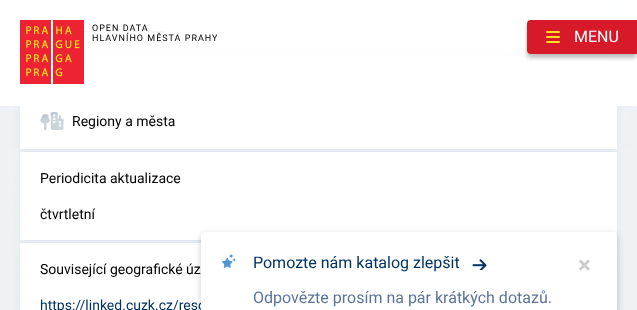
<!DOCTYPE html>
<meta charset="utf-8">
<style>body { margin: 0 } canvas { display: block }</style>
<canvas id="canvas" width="637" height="310"></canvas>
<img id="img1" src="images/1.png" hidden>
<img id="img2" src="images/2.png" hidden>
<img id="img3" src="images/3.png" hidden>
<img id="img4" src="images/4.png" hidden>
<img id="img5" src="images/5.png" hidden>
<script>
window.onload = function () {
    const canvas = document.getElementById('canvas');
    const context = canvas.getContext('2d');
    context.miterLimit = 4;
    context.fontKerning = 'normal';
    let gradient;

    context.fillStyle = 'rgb(255, 255, 255)';
    context.fillRect(0, 0, 637, 310);
    gradient = context.createLinearGradient(319, 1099, 319, -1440);
    gradient.addColorStop(0, 'rgb(235, 239, 243)');
    gradient.addColorStop(0.01, 'rgb(230, 235, 240)');
    gradient.addColorStop(1, 'rgb(255, 255, 255)');
    context.fillStyle = gradient;
    context.fillRect(0, 0, 637, 310);
    context.fillStyle = 'rgba(0, 51, 102, 0.08)';
    context.filter = 'blur(68px)';
    context.beginPath();
    context.rect(20, -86, 597, 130);
    context.fill();
    context.filter = 'none';
    context.fillStyle = 'rgba(0, 51, 102, 0.05)';
    context.filter = 'blur(4.5px)';
    context.beginPath();
    context.rect(20, -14, 597, 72);
    context.fill();
    context.filter = 'none';
    context.fillStyle = 'rgb(255, 255, 255)';
    context.fillRect(20, 0, 597, 53);
    context.fillStyle = 'rgb(0, 51, 102)';
    context.fillRect(51, 31, 114, 1);
    context.fillStyle = 'rgba(0, 51, 102, 0.05)';
    context.filter = 'blur(4.5px)';
    context.beginPath();
    context.rect(20, 62, 597, 92);
    context.fill();
    context.filter = 'none';
    context.fillStyle = 'rgb(255, 255, 255)';
    context.fillRect(20, 57, 597, 92);
    context.fillStyle = 'rgba(255, 255, 255, 0.96)';
    context.fillRect(0, 0, 637, 106);
    context.drawImage(document.getElementById('img1'), 20, 20, 64, 64);
    context.fillStyle = 'rgba(0, 0, 0, 0.25)';
    context.filter = 'blur(2px)';
    context.beginPath();
    context.roundRect(527, 24, 110, 34, 4);
    context.fill();
    context.filter = 'none';
    context.fillStyle = 'rgb(214, 26, 41)';
    context.beginPath();
    context.roundRect(527, 20, 110, 34, [4, 0, 0, 4]);
    context.fill();
    context.drawImage(document.getElementById('img2'), 546, 31, 14, 12);
    context.drawImage(document.getElementById('img3'), 40, 112, 24, 18);
    context.fillStyle = 'rgba(0, 51, 102, 0.05)';
    context.filter = 'blur(4.5px)';
    context.beginPath();
    context.rect(20, 157, 597, 88);
    context.fill();
    context.filter = 'none';
    context.fillStyle = 'rgb(255, 255, 255)';
    context.fillRect(20, 152, 597, 88);
    context.fillStyle = 'rgba(0, 51, 102, 0.05)';
    context.filter = 'blur(4.5px)';
    context.beginPath();
    context.rect(20, 248, 597, 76);
    context.fill();
    context.filter = 'none';
    context.fillStyle = 'rgb(255, 255, 255)';
    context.fillRect(20, 243, 181, 67);
    context.fillStyle = 'rgba(0, 0, 0, 0.2)';
    context.filter = 'blur(3px)';
    context.beginPath();
    context.roundRect(201, 234, 416, 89, 4);
    context.fill();
    context.filter = 'none';
    context.letterSpacing = '1px';
    context.font = '9px Roboto';
    context.fillStyle = 'rgb(0, 0, 0)';
    context.fillText('OPEN DATA', 92, 31);
    context.fillText('HLAVNÍHO MĚSTA PRAHY', 92, 41);
    context.letterSpacing = '0px';
    context.font = '16px Roboto';
    context.fillStyle = 'rgb(255, 255, 255)';
    context.fillText('MENU', 574, 42);
    context.font = '14px Roboto';
    context.fillStyle = 'rgb(0, 0, 0)';
    context.fillText('Regiony a města', 72, 126);
    context.fillText('Periodicita aktualizace', 40, 183);
    context.fillText('čtvrtletní', 40, 219);
    context.fillText('Související geografické úz', 40, 274);
    context.fillStyle = 'rgb(0, 51, 102)';
    context.fillText('https://linked.cuzk.cz/reso', 40, 310);
    context.fillStyle = 'rgb(255, 255, 255)';
    context.beginPath();
    context.roundRect(201, 232, 416, 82, 4);
    context.fill();
    context.drawImage(document.getElementById('img4'), 222, 253, 14, 15);
    context.font = '16px Roboto';
    context.fillStyle = 'rgb(0, 51, 102)';
    context.fillText('Pomozte nám katalog zlepšit', 253, 268);
    context.drawImage(document.getElementById('img5'), 472, 259, 15, 11);
    context.font = 'bold 24px Roboto';
    context.fillStyle = 'rgb(204, 204, 204)';
    context.fillText('×', 578, 273);
    context.font = '16px Roboto';
    context.fillStyle = 'rgb(92, 116, 153)';
    context.fillText('Odpovězte prosím na pár krátkých dotazů.', 253, 303);
};
</script>
